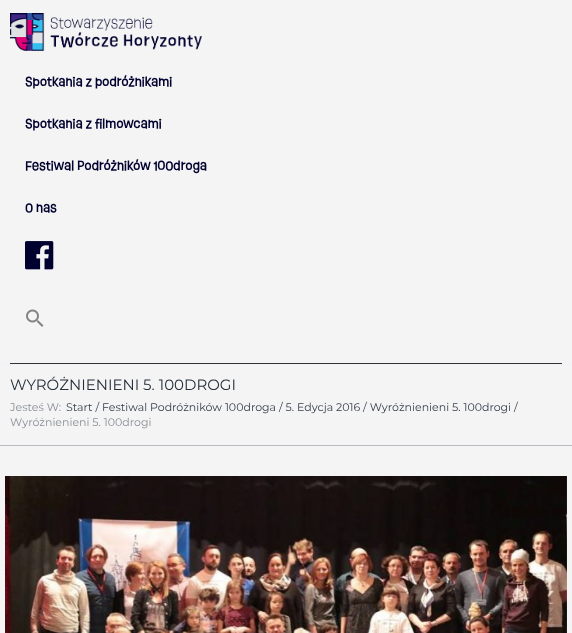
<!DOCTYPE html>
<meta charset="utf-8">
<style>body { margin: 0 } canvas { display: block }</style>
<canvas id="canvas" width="572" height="633"></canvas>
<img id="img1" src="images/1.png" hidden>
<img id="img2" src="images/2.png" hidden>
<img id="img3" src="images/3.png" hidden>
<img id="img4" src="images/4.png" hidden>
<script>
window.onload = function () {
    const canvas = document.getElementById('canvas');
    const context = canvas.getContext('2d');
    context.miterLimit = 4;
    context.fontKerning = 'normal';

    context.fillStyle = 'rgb(244, 244, 244)';
    context.fillRect(0, 0, 572, 633);
    context.fillStyle = 'rgb(242, 241, 247)';
    context.fillRect(0, 364, 572, 1);
    context.drawImage(document.getElementById('img1'), 10, 13, 192, 38);
    context.drawImage(document.getElementById('img2'), 25, 241, 29, 29);
    context.fillStyle = 'rgb(51, 51, 51)';
    context.fillRect(10, 363, 552, 1);
    context.drawImage(document.getElementById('img3'), 26, 309, 18, 18);
    context.fillStyle = 'rgb(185, 188, 192)';
    context.fillRect(0, 445, 572, 1);
    context.drawImage(document.getElementById('img4'), 5, 476, 562, 157);
    context.font = 'bold 12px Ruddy';
    context.fillStyle = 'rgb(1, 1, 47)';
    context.fillText('Spotkania z podróżnikami', 25, 86);
    context.fillText('Spotkania z filmowcami', 25, 128);
    context.fillText('Festiwal Podróżników 100droga', 25, 170);
    context.fillText('O nas', 25, 212);
    context.font = '100 15px Montserrat';
    context.fillStyle = 'rgb(38, 47, 58)';
    context.fillText('WYRÓŻNIENIENI 5. 100DROGI', 10, 390);
    context.font = '100 11px Montserrat';
    context.fillStyle = 'rgb(138, 143, 151)';
    context.fillText('Jesteś W:', 10, 411);
    context.fillStyle = 'rgb(53, 61, 77)';
    context.fillText('Start / Festiwal Podróżników 100droga / 5. Edycja 2016 / Wyróżnienieni 5. 100drogi /', 66, 411);
    context.fillStyle = 'rgb(138, 143, 151)';
    context.fillText('Wyróżnienieni 5. 100drogi', 10, 426);
};
</script>
